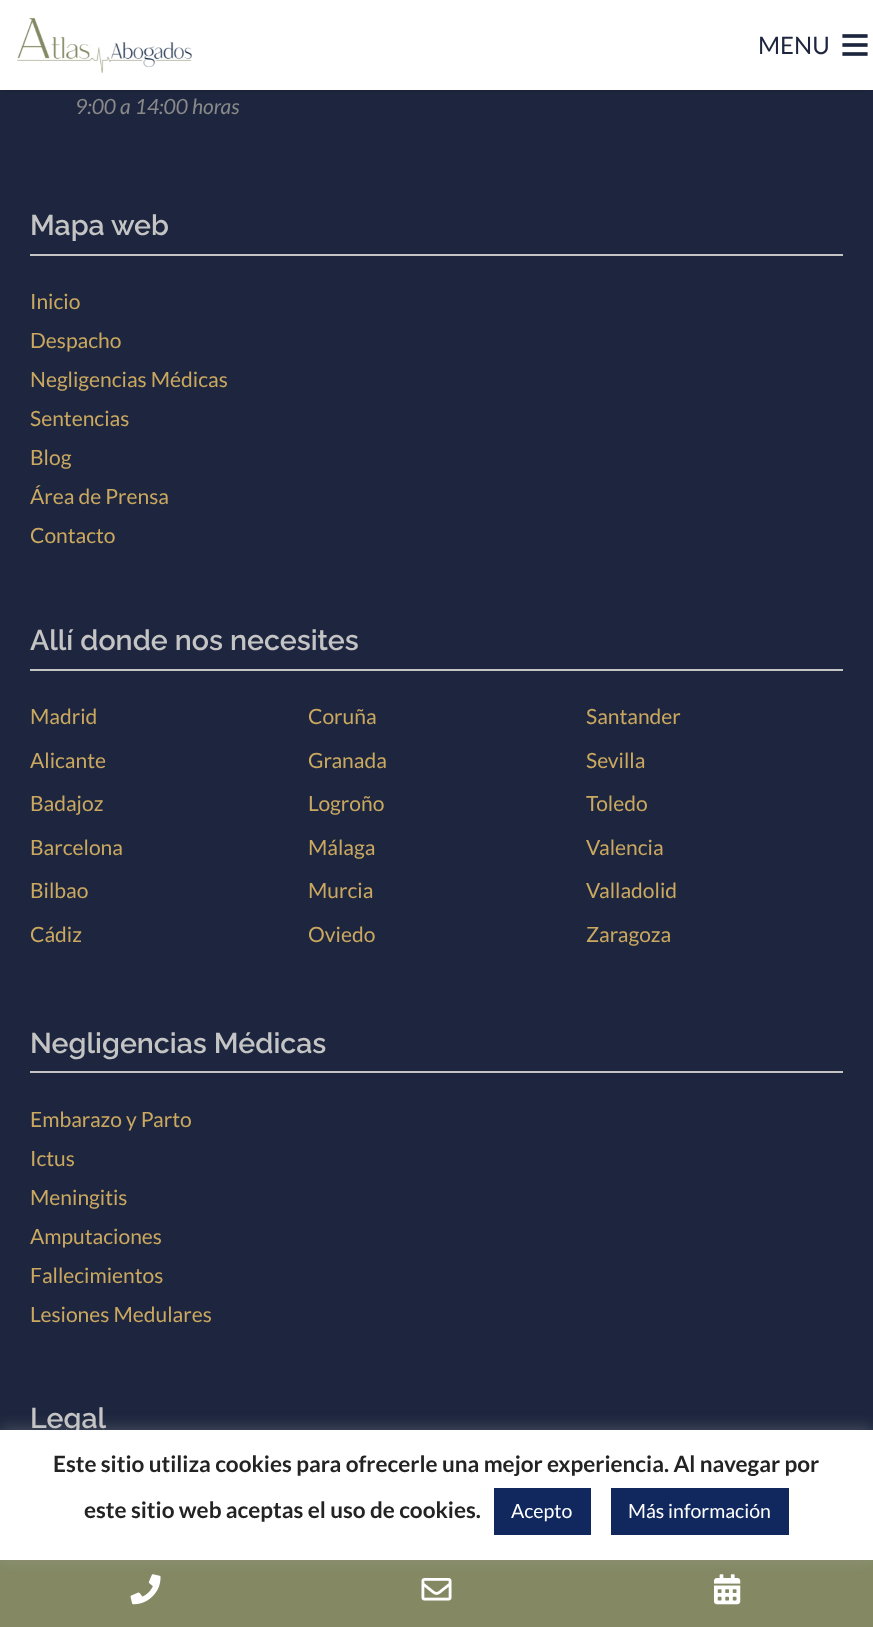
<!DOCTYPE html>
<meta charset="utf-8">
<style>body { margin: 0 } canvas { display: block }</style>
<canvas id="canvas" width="873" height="1627"></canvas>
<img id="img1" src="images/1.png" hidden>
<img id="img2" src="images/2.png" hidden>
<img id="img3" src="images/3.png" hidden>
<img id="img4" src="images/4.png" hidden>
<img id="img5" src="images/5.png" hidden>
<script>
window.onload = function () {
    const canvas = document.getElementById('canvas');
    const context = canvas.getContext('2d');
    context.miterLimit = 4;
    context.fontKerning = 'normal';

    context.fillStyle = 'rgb(29, 38, 62)';
    context.fillRect(0, 0, 873, 1627);
    context.fillStyle = 'rgba(0, 0, 0, 0.2)';
    context.filter = 'blur(1.5px)';
    context.beginPath();
    context.rect(3, 6, 867, 84);
    context.fill();
    context.filter = 'none';
    context.fillStyle = 'rgb(255, 255, 255)';
    context.fillRect(0, 0, 873, 90);
    context.drawImage(document.getElementById('img1'), 17, 18, 175, 55);
    context.drawImage(document.getElementById('img2'), 842, 34, 26, 22);
    context.fillStyle = 'rgb(196, 196, 196)';
    context.fillRect(30, 254, 813, 2);
    context.fillRect(30, 669, 813, 2);
    context.fillRect(30, 1071, 813, 2);
    context.fillStyle = 'rgb(132, 137, 100)';
    context.fillRect(0, 1560, 873, 67);
    context.drawImage(document.getElementById('img3'), 130, 1574, 31, 31);
    context.drawImage(document.getElementById('img4'), 421, 1578, 31, 23);
    context.drawImage(document.getElementById('img5'), 714, 1574, 27, 31);
    context.fillStyle = 'rgba(172, 171, 171, 0.3)';
    context.filter = 'blur(7.5px)';
    context.beginPath();
    context.rect(0, 1428, 873, 131);
    context.fill();
    context.filter = 'none';
    context.font = '24px Lato';
    context.fillStyle = 'rgb(29, 38, 62)';
    context.fillText('MENU', 758, 54);
    context.font = 'italic 21px Lato';
    context.fillStyle = 'rgb(137, 137, 137)';
    context.fillText('9:00 a 14:00 horas', 75, 114);
    context.font = '600 28.5px Raleway';
    context.fillStyle = 'rgb(196, 196, 196)';
    context.fillText('Mapa web', 30, 235);
    context.font = '21px Lato';
    context.fillStyle = 'rgb(203, 168, 96)';
    context.fillText('Inicio', 30, 309);
    context.fillText('Despacho', 30, 348);
    context.fillText('Negligencias Médicas', 30, 387);
    context.fillText('Sentencias', 30, 426);
    context.fillText('Blog', 30, 465);
    context.fillText('Área de Prensa', 30, 504);
    context.fillText('Contacto', 30, 543);
    context.font = '600 28.5px Raleway';
    context.fillStyle = 'rgb(196, 196, 196)';
    context.fillText('Allí donde nos necesites', 30, 650);
    context.font = '21px Lato';
    context.fillStyle = 'rgb(203, 168, 96)';
    context.fillText('Madrid', 30, 724);
    context.fillText('Coruña', 308, 724);
    context.fillText('Santander', 586, 724);
    context.fillText('Alicante', 30, 768);
    context.fillText('Granada', 308, 768);
    context.fillText('Sevilla', 586, 768);
    context.fillText('Badajoz', 30, 811);
    context.fillText('Logroño', 308, 811);
    context.fillText('Toledo', 586, 811);
    context.fillText('Barcelona', 30, 855);
    context.fillText('Málaga', 308, 855);
    context.fillText('Valencia', 586, 855);
    context.fillText('Bilbao', 30, 898);
    context.fillText('Murcia', 308, 898);
    context.fillText('Valladolid', 586, 898);
    context.fillText('Cádiz', 30, 942);
    context.fillText('Oviedo', 308, 942);
    context.fillText('Zaragoza', 586, 942);
    context.font = '600 28.5px Raleway';
    context.fillStyle = 'rgb(196, 196, 196)';
    context.fillText('Negligencias Médicas', 30, 1053);
    context.font = '21px Lato';
    context.fillStyle = 'rgb(203, 168, 96)';
    context.fillText('Embarazo y Parto', 30, 1127);
    context.fillText('Ictus', 30, 1166);
    context.fillText('Meningitis', 30, 1205);
    context.fillText('Amputaciones', 30, 1244);
    context.fillText('Fallecimientos', 30, 1283);
    context.fillText('Lesiones Medulares', 30, 1322);
    context.font = '600 28.5px Raleway';
    context.fillStyle = 'rgb(196, 196, 196)';
    context.fillText('Legal', 30, 1428);
    context.fillStyle = 'rgb(255, 255, 255)';
    context.fillRect(0, 1430, 873, 130);
    context.font = 'bold 22.5px Lato';
    context.fillStyle = 'rgb(35, 35, 35)';
    context.fillText('Este sitio utiliza cookies para ofrecerle una mejor experiencia. Al navegar por', 53, 1472);
    context.fillText('este sitio web aceptas el uso de cookies.', 84, 1518);
    context.fillStyle = 'rgb(17, 40, 94)';
    context.fillRect(494, 1488, 97, 47);
    context.font = '19.5px Lato';
    context.fillStyle = 'rgb(255, 255, 255)';
    context.fillText('Acepto', 511, 1518);
    context.fillStyle = 'rgb(17, 40, 94)';
    context.fillRect(611, 1488, 178, 47);
    context.fillStyle = 'rgb(255, 255, 255)';
    context.fillText('Más información', 628, 1518);
};
</script>
